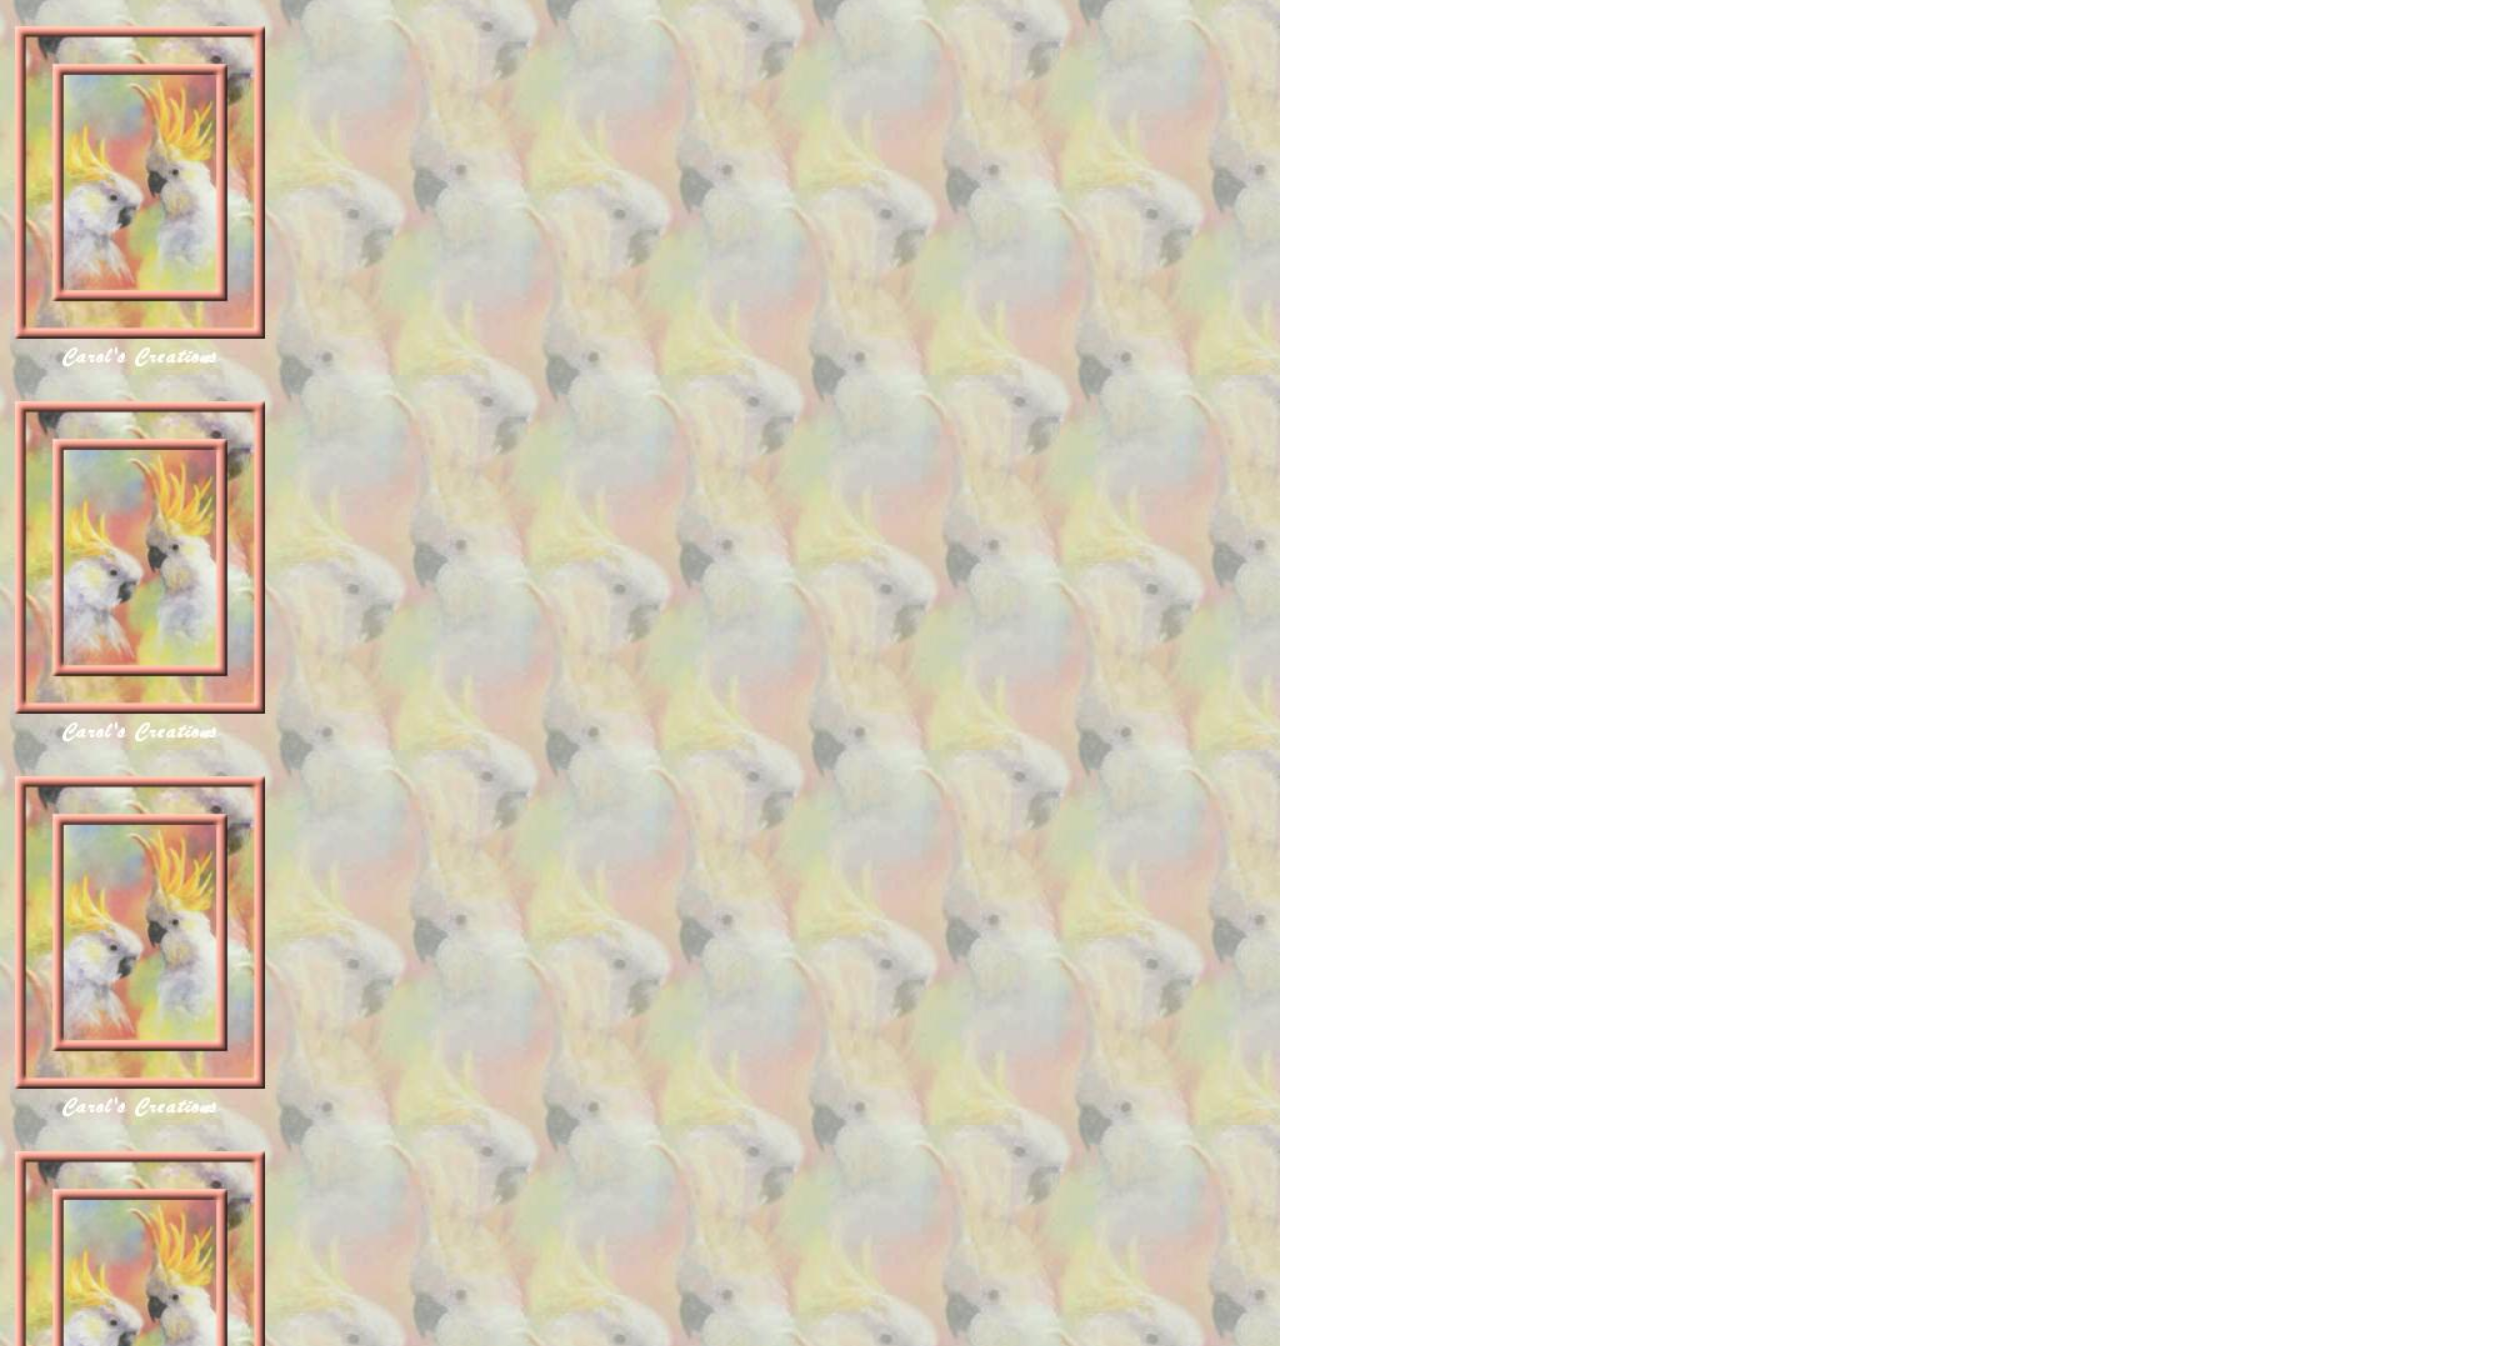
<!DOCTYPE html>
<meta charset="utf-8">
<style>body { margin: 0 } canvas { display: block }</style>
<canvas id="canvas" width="2508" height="1346"></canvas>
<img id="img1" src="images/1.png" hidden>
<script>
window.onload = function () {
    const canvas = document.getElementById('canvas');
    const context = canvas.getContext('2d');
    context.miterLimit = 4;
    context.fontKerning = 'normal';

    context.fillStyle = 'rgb(255, 255, 255)';
    context.fillRect(0, 0, 2508, 1346);
    context.drawImage(document.getElementById('img1'), 0, 0, 1280, 1346);
};
</script>
